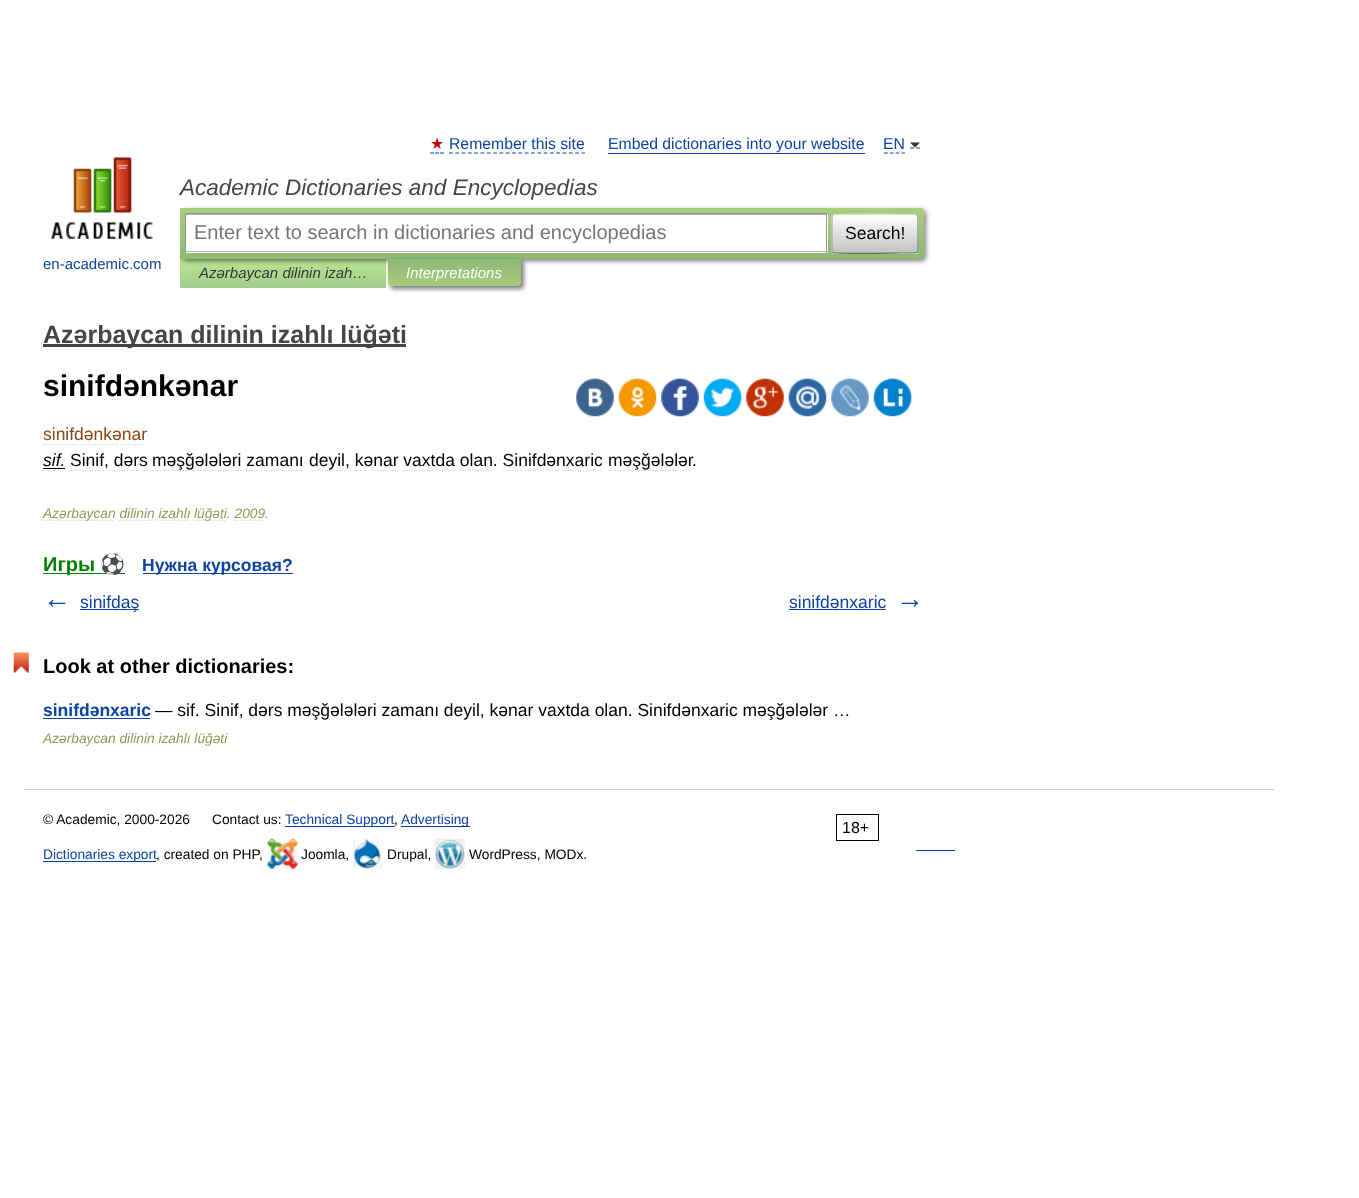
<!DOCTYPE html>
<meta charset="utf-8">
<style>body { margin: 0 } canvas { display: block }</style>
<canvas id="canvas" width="1359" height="1198"></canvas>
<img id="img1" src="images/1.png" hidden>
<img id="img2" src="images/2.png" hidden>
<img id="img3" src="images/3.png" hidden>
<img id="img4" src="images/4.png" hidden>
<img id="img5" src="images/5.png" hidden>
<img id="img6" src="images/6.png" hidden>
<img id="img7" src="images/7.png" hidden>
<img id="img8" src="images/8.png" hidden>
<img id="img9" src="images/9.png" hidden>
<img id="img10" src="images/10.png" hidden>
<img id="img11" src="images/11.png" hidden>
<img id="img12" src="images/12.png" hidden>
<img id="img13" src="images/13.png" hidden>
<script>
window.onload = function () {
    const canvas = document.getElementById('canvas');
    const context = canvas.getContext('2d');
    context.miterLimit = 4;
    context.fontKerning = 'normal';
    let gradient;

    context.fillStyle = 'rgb(255, 255, 255)';
    context.fillRect(0, 0, 1359, 1198);
    context.beginPath();
    context.moveTo(430, 153);
    context.lineTo(434, 153);
    context.moveTo(435, 153);
    context.lineTo(439, 153);
    context.moveTo(440, 153);
    context.lineTo(444, 153);
    context.strokeStyle = 'rgb(0, 68, 170)';
    context.lineWidth = 1.2;
    context.stroke();
    context.beginPath();
    context.moveTo(449, 153);
    context.lineTo(585, 153);
    context.setLineDash([3.75, 2.56]);
    context.stroke();
    context.fillStyle = 'rgb(13, 68, 160)';
    context.fillRect(608, 153, 257, 1);
    context.beginPath();
    context.moveTo(884, 153);
    context.lineTo(905, 153);
    context.setLineDash([3.75, 2.09]);
    context.stroke();
    context.beginPath();
    context.moveTo(910, 148);
    context.lineTo(914, 148);
    context.moveTo(916, 148);
    context.lineTo(920, 148);
    context.setLineDash([]);
    context.stroke();
    context.fillStyle = 'rgb(51, 51, 51)';
    context.beginPath();
    context.moveTo(910, 142.5);
    context.lineTo(920, 142.5);
    context.lineTo(915, 147.5);
    context.closePath();
    context.fill();
    gradient = context.createLinearGradient(283, 259, 283, 288);
    gradient.addColorStop(0, 'rgb(189, 230, 147)');
    gradient.addColorStop(1, 'rgb(160, 206, 138)');
    context.fillStyle = gradient;
    context.fillRect(180, 259, 206, 29);
    context.fillStyle = 'rgba(0, 0, 0, 0.5)';
    context.filter = 'blur(2.5px)';
    context.beginPath();
    context.roundRect(183, 210, 743, 51, 4);
    context.fill();
    context.filter = 'none';
    gradient = context.createLinearGradient(552, 207, 552, 259);
    gradient.addColorStop(0, 'rgb(171, 207, 126)');
    gradient.addColorStop(1, 'rgb(142, 184, 116)');
    context.fillStyle = gradient;
    context.beginPath();
    context.roundRect(180, 208, 744, 51, [0, 4, 4, 0]);
    context.fill();
    context.fillStyle = 'rgb(255, 255, 255)';
    context.fillRect(186, 214, 642, 39);
    context.fillStyle = 'rgb(179, 179, 179)';
    context.fillRect(186, 214, 640, 1);
    context.fillStyle = 'rgb(148, 148, 148)';
    context.fillRect(185, 213, 643, 1);
    context.fillRect(826, 213, 1, 40);
    context.fillStyle = 'rgb(180, 180, 180)';
    context.fillRect(185, 251, 643, 1);
    context.fillStyle = 'rgb(148, 148, 148)';
    context.fillRect(185, 213, 1, 40);
    context.save();
    context.beginPath();
    context.roundRect(831, 214, 88, 40, 4);
    context.clip();
    gradient = context.createLinearGradient(875, 178, 875, 215);
    gradient.addColorStop(0, 'rgb(255, 255, 255)');
    gradient.addColorStop(1, 'rgb(193, 193, 193)');
    context.fillStyle = gradient;
    context.fillRect(831, 214, 88, 1);
    gradient = context.createLinearGradient(875, 215, 875, 253);
    gradient.addColorStop(0, 'rgb(255, 255, 255)');
    gradient.addColorStop(1, 'rgb(193, 193, 193)');
    context.fillStyle = gradient;
    context.fillRect(831, 215, 88, 38);
    gradient = context.createLinearGradient(875, 253, 875, 290);
    gradient.addColorStop(0, 'rgb(255, 255, 255)');
    gradient.addColorStop(1, 'rgb(193, 193, 193)');
    context.fillStyle = gradient;
    context.fillRect(831, 253, 88, 1);
    context.restore();
    context.beginPath();
    context.moveTo(833, 215.5);
    context.lineTo(833, 215);
    context.bezierCurveTo(835, 213.5, 894, 214.5, 901.5, 214.5);
    context.lineTo(915, 214.5);
    context.lineTo(917, 215.5);
    context.strokeStyle = 'rgb(209, 228, 188)';
    context.stroke();
    context.beginPath();
    context.moveTo(917, 215.5);
    context.bezierCurveTo(918, 216, 918, 216.5, 918, 217.5);
    context.lineTo(918, 250);
    context.bezierCurveTo(918, 251, 918, 251.5, 917, 252);
    context.strokeStyle = 'rgb(122, 142, 105)';
    context.stroke();
    context.beginPath();
    context.moveTo(917, 252);
    context.lineTo(915, 253);
    context.lineTo(901.5, 253);
    context.bezierCurveTo(894, 253, 835, 254, 833, 252.5);
    context.lineTo(833, 252);
    context.strokeStyle = 'rgb(93, 114, 80)';
    context.stroke();
    context.beginPath();
    context.moveTo(833, 252);
    context.bezierCurveTo(832, 251.5, 832, 251, 832, 250);
    context.lineTo(832, 217.5);
    context.bezierCurveTo(832, 216.5, 832, 216, 833, 215.5);
    context.strokeStyle = 'rgb(154, 174, 137)';
    context.stroke();
    context.drawImage(document.getElementById('img1'), 51, 157, 102, 82);
    context.fillStyle = 'rgba(0, 0, 0, 0.5)';
    context.filter = 'blur(2px)';
    context.beginPath();
    context.roundRect(390, 261, 134, 28, 4);
    context.fill();
    context.filter = 'none';
    gradient = context.createLinearGradient(454, 259, 454, 286);
    gradient.addColorStop(0, 'rgb(143, 184, 117)');
    gradient.addColorStop(1, 'rgb(167, 204, 125)');
    context.fillStyle = gradient;
    context.beginPath();
    context.roundRect(388, 259, 133, 27, [0, 0, 4, 4]);
    context.fill();
    context.fillStyle = 'rgb(69, 69, 69)';
    context.fillRect(43, 344, 363, 3);
    context.drawImage(document.getElementById('img2'), 576, 378, 38, 39);
    context.drawImage(document.getElementById('img3'), 618, 378, 39, 39);
    context.drawImage(document.getElementById('img4'), 661, 378, 38, 39);
    context.drawImage(document.getElementById('img5'), 703, 378, 39, 39);
    context.drawImage(document.getElementById('img6'), 746, 378, 38, 39);
    context.drawImage(document.getElementById('img7'), 788, 378, 39, 39);
    context.drawImage(document.getElementById('img8'), 831, 378, 38, 39);
    context.drawImage(document.getElementById('img9'), 873, 378, 39, 39);
    context.beginPath();
    context.moveTo(42.5, 444.5);
    context.lineTo(146, 444.5);
    context.strokeStyle = 'rgb(217, 217, 217)';
    context.setLineDash([1.25, 1.25]);
    context.stroke();
    context.beginPath();
    context.moveTo(42.5, 470.5);
    context.lineTo(60, 470.5);
    context.stroke();
    context.fillStyle = 'rgb(0, 0, 0)';
    context.fillRect(43, 468, 22, 1);
    context.beginPath();
    context.moveTo(70, 470.5);
    context.lineTo(104, 470.5);
    context.stroke();
    context.beginPath();
    context.moveTo(152.5, 470.5);
    context.lineTo(242.5, 470.5);
    context.stroke();
    context.beginPath();
    context.moveTo(309, 470.5);
    context.lineTo(345, 470.5);
    context.stroke();
    context.beginPath();
    context.moveTo(607.5, 470.5);
    context.lineTo(692.5, 470.5);
    context.stroke();
    context.beginPath();
    context.moveTo(114, 470.5);
    context.lineTo(147.5, 470.5);
    context.stroke();
    context.beginPath();
    context.moveTo(42.5, 520.5);
    context.lineTo(115, 520.5);
    context.stroke();
    context.beginPath();
    context.moveTo(194, 520.5);
    context.lineTo(226, 520.5);
    context.stroke();
    context.fillStyle = 'rgb(0, 128, 0)';
    context.fillRect(43, 573, 82, 1);
    context.fillStyle = 'rgb(13, 68, 160)';
    context.fillRect(143, 573, 150, 1);
    context.fillRect(80, 609, 59, 1);
    context.fillRect(789, 609, 97, 1);
    context.drawImage(document.getElementById('img10'), 13, 652, 16, 21);
    context.fillRect(43, 718, 107, 1);
    context.fillStyle = 'rgb(199, 199, 199)';
    context.fillRect(24, 789, 1250, 1);
    context.fillStyle = 'rgb(0, 68, 170)';
    context.fillRect(285, 826, 110, 1);
    context.fillRect(401, 826, 69, 1);
    context.strokeStyle = 'rgb(0, 0, 0)';
    context.lineWidth = 1;
    context.setLineDash([]);
    context.strokeRect(836.5, 814.5, 42, 26);
    context.fillRect(43, 861, 113, 1);
    context.drawImage(document.getElementById('img11'), 267, 838, 31, 31);
    context.drawImage(document.getElementById('img12'), 352, 838, 31, 31);
    context.drawImage(document.getElementById('img13'), 435, 838, 30, 31);
    context.fillRect(916, 850, 39, 1);
    context.font = '15.75px DejaVu Sans';
    context.fillStyle = 'rgb(204, 0, 0)';
    context.fillText('★', 430, 149);
    context.font = '15.75px Liberation Sans';
    context.fillStyle = 'rgb(13, 68, 160)';
    context.fillText('Remember this site', 449, 149);
    context.fillText('Embed dictionaries into your website', 608, 149);
    context.fillText('EN', 883, 149);
    context.font = 'italic 22.5px Liberation Sans';
    context.fillStyle = 'rgb(69, 69, 69)';
    context.fillText('Academic Dictionaries and Encyclopedias', 180, 195);
    context.font = '20px Liberation Sans';
    context.fillStyle = 'rgb(117, 117, 117)';
    context.fillText('Enter text to search in dictionaries and encyclopedias', 194, 239);
    context.font = '17.5px Liberation Sans';
    context.fillStyle = 'rgb(0, 0, 0)';
    context.fillText('Search!', 845, 239);
    context.font = '15px Liberation Sans';
    context.fillStyle = 'rgb(13, 68, 160)';
    context.fillText('en-academic.com', 43, 269);
    context.font = 'italic 15px Liberation Sans';
    context.fillStyle = 'rgb(53, 53, 53)';
    context.fillText('Azərbaycan dilinin izah…', 199, 278);
    context.fillStyle = 'rgb(255, 255, 255)';
    context.fillText('Interpretations', 406, 278);
    context.font = 'bold 25px Liberation Sans';
    context.fillStyle = 'rgb(69, 69, 69)';
    context.fillText('Azərbaycan dilinin izahlı lüğəti', 43, 343);
    context.font = 'bold 30px Liberation Sans';
    context.fillStyle = 'rgb(0, 0, 0)';
    context.fillText('sinifdənkənar', 43, 396);
    context.font = '17.5px Liberation Sans';
    context.fillStyle = 'rgb(139, 69, 19)';
    context.fillText('sinifdənkənar', 43, 440);
    context.font = 'italic 17.5px Liberation Sans';
    context.fillStyle = 'rgb(0, 0, 0)';
    context.fillText('sif.', 43, 466);
    context.font = '17.5px Liberation Sans';
    context.fillText('Sinif, dərs', 70, 466);
    context.fillText('məşğələləri zamanı', 152, 466);
    context.fillText('deyil, kənar vaxtda olan. Sinifdənxaric', 309, 466);
    context.fillText('məşğələlər', 608, 466);
    context.fillText('.', 692, 466);
    context.beginPath();
    context.moveTo(246, 470.5);
    context.lineTo(304, 470.5);
    context.strokeStyle = 'rgb(217, 217, 217)';
    context.lineWidth = 1.2;
    context.setLineDash([1.25, 1.25]);
    context.stroke();
    context.beginPath();
    context.moveTo(355, 470.5);
    context.lineTo(399, 470.5);
    context.stroke();
    context.beginPath();
    context.moveTo(404, 470.5);
    context.lineTo(455, 470.5);
    context.stroke();
    context.beginPath();
    context.moveTo(460, 470.5);
    context.lineTo(492.5, 470.5);
    context.stroke();
    context.beginPath();
    context.moveTo(502.5, 470.5);
    context.lineTo(602.5, 470.5);
    context.stroke();
    context.font = 'italic 13.75px Liberation Sans';
    context.fillStyle = 'rgb(147, 151, 86)';
    context.fillText('Azərbaycan dilinin izahlı', 43, 518);
    context.beginPath();
    context.moveTo(119, 520.5);
    context.lineTo(154, 520.5);
    context.stroke();
    context.beginPath();
    context.moveTo(157.5, 520.5);
    context.lineTo(190, 520.5);
    context.stroke();
    context.fillText('lüğəti. 2009.', 194, 518);
    context.beginPath();
    context.moveTo(235, 520.5);
    context.lineTo(265, 520.5);
    context.stroke();
    context.font = 'bold 20px Liberation Sans';
    context.fillStyle = 'rgb(0, 128, 0)';
    context.fillText('Игры', 43, 571);
    context.font = 'bold 20px Noto Color Emoji';
    context.fillText('⚽', 100, 571);
    context.font = 'bold 17.5px Liberation Sans';
    context.fillStyle = 'rgb(13, 68, 160)';
    context.fillText('Нужна курсовая?', 142, 571);
    context.font = 'bold 28px Liberation Sans';
    context.fillText('←', 43, 608);
    context.font = '17.5px Liberation Sans';
    context.fillText('sinifdaş', 80, 608);
    context.fillText('sinifdənxaric', 789, 608);
    context.font = 'bold 28px Liberation Sans';
    context.fillText('→', 896, 608);
    context.font = 'bold 20px Liberation Sans';
    context.fillStyle = 'rgb(0, 0, 0)';
    context.fillText('Look at other dictionaries:', 43, 673);
    context.font = 'bold 17.5px Liberation Sans';
    context.fillStyle = 'rgb(13, 68, 160)';
    context.fillText('sinifdənxaric', 43, 716);
    context.font = '17.5px Liberation Sans';
    context.fillStyle = 'rgb(0, 0, 0)';
    context.fillText('— sif. Sinif, dərs məşğələləri zamanı deyil, kənar vaxtda olan. Sinifdənxaric məşğələlər …', 155, 716);
    context.font = 'italic 13.75px Liberation Sans';
    context.fillStyle = 'rgb(147, 151, 86)';
    context.fillText('Azərbaycan dilinin izahlı lüğəti', 43, 743);
    context.font = '13.75px Liberation Sans';
    context.fillStyle = 'rgb(0, 0, 0)';
    context.fillText('© Academic, 2000-2026', 43, 824);
    context.fillText('Contact us:', 212, 824);
    context.fillStyle = 'rgb(13, 68, 160)';
    context.fillText('Technical Support', 285, 824);
    context.fillStyle = 'rgb(0, 0, 0)';
    context.fillText(',', 394, 824);
    context.fillStyle = 'rgb(13, 68, 160)';
    context.fillText('Advertising', 401, 824);
    context.font = '16px Liberation Sans';
    context.fillStyle = 'rgb(0, 0, 0)';
    context.fillText('18+', 842, 833);
    context.font = '13.75px Liberation Sans';
    context.fillStyle = 'rgb(13, 68, 160)';
    context.fillText('Dictionaries export', 43, 859);
    context.fillStyle = 'rgb(0, 0, 0)';
    context.fillText(', created on PHP,', 156, 859);
    context.fillText('Joomla,', 301, 859);
    context.fillText('Drupal,', 387, 859);
    context.fillText('WordPress, MODx.', 469, 859);
};
</script>
